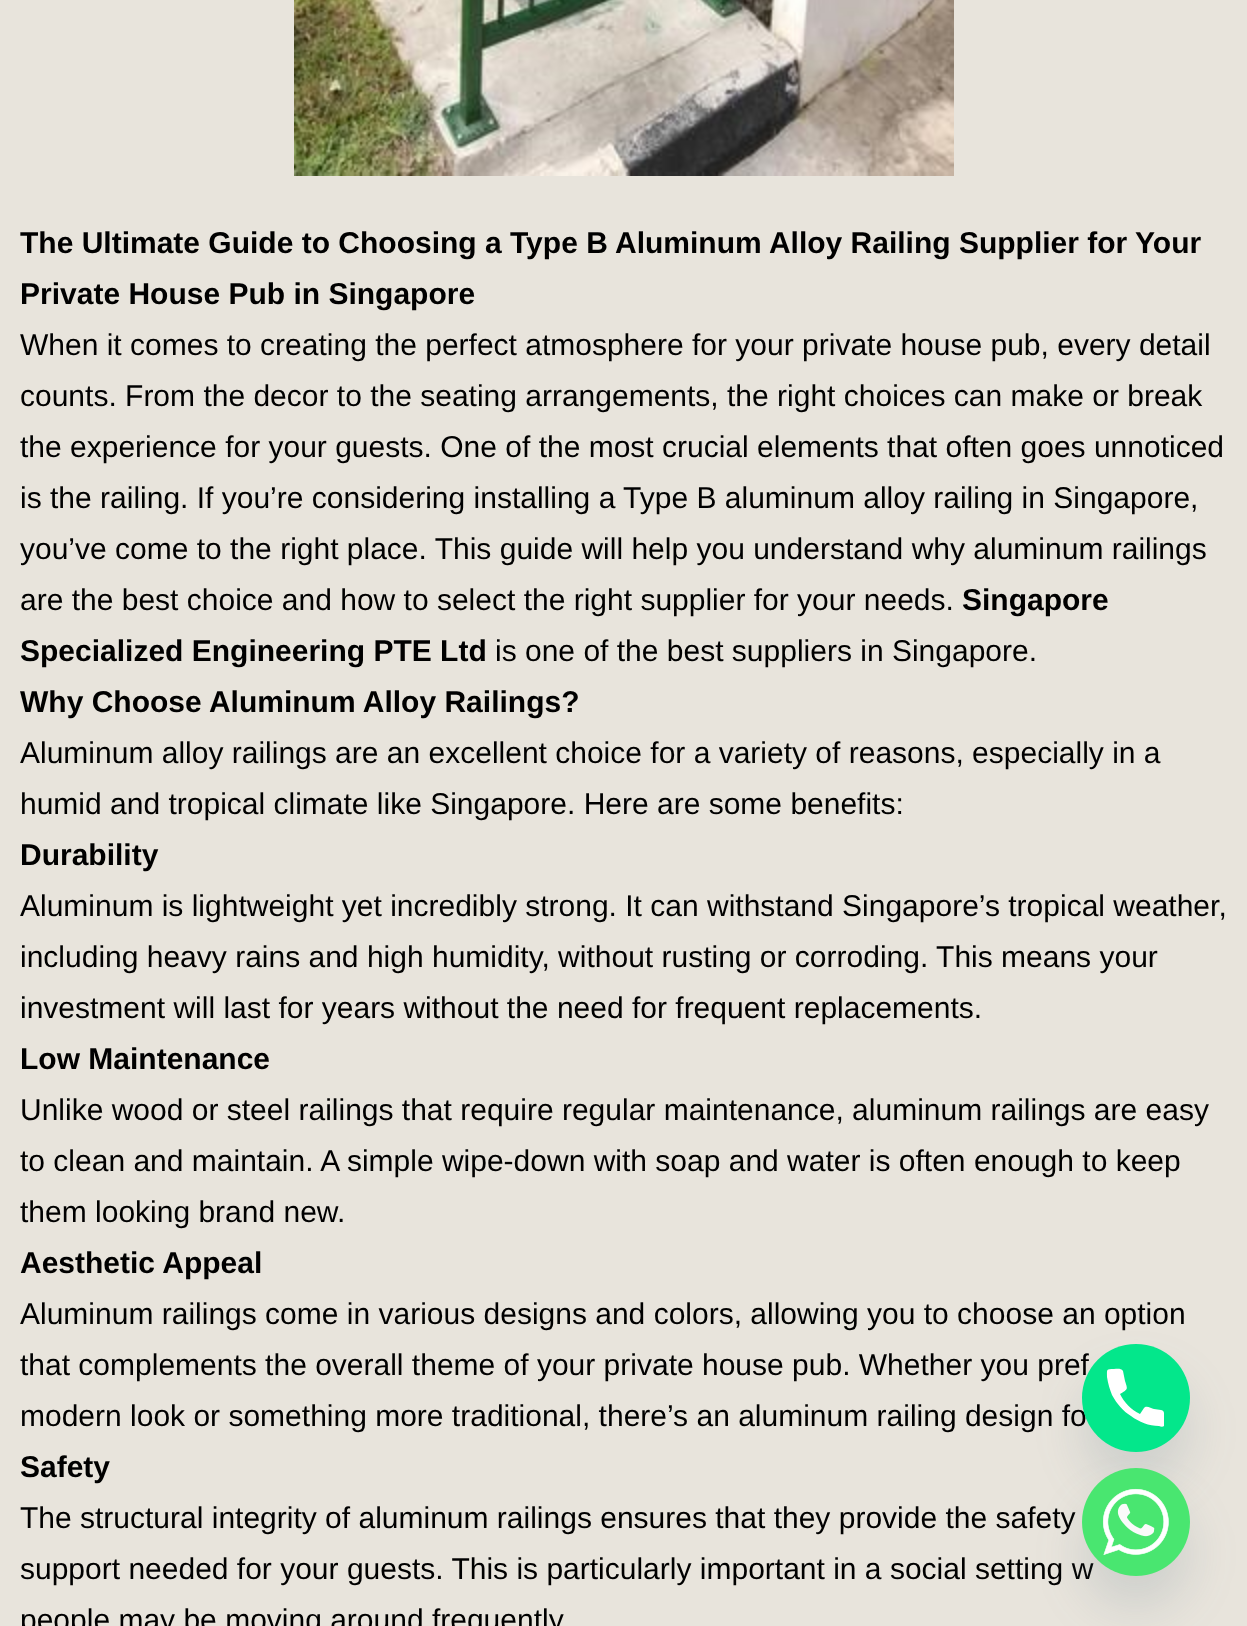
<!DOCTYPE html>
<meta charset="utf-8">
<style>body { margin: 0 } canvas { display: block }</style>
<canvas id="canvas" width="1247" height="1626"></canvas>
<img id="img1" src="images/1.png" hidden>
<img id="img2" src="images/2.png" hidden>
<script>
window.onload = function () {
    const canvas = document.getElementById('canvas');
    const context = canvas.getContext('2d');
    context.miterLimit = 4;
    context.fontKerning = 'normal';

    context.fillStyle = 'rgb(232, 228, 220)';
    context.fillRect(0, 0, 1247, 1626);
    context.drawImage(document.getElementById('img1'), 294, 0, 660, 176);
    context.fillStyle = 'rgba(73, 104, 126, 0.16)';
    context.filter = 'blur(24px)';
    context.beginPath();
    context.roundRect(1082, 1376, 108, 108, 54);
    context.fill();
    context.filter = 'none';
    context.font = 'bold 30px Liberation Sans';
    context.fillStyle = 'rgb(0, 0, 0)';
    context.fillText('The Ultimate Guide to Choosing a Type B Aluminum Alloy Railing Supplier for Your', 20, 253);
    context.fillText('Private House Pub in Singapore', 20, 304);
    context.font = '30px Liberation Sans';
    context.fillText('When it comes to creating the perfect atmosphere for your private house pub, every detail', 20, 355);
    context.fillText('counts. From the decor to the seating arrangements, the right choices can make or break', 20, 406);
    context.fillText('the experience for your guests. One of the most crucial elements that often goes unnoticed', 20, 457);
    context.fillText('is the railing. If you’re considering installing a Type B aluminum alloy railing in Singapore,', 20, 508);
    context.fillText('you’ve come to the right place. This guide will help you understand why aluminum railings', 20, 559);
    context.fillText('are the best choice and how to select the right supplier for your needs.', 20, 610);
    context.font = 'bold 30px Liberation Sans';
    context.fillText('Singapore', 962, 610);
    context.fillText('Specialized Engineering PTE Ltd', 20, 661);
    context.font = '30px Liberation Sans';
    context.fillText('is one of the best suppliers in Singapore.', 495, 661);
    context.font = 'bold 30px Liberation Sans';
    context.fillText('Why Choose Aluminum Alloy Railings?', 20, 712);
    context.font = '30px Liberation Sans';
    context.fillText('Aluminum alloy railings are an excellent choice for a variety of reasons, especially in a', 20, 763);
    context.fillText('humid and tropical climate like Singapore. Here are some benefits:', 20, 814);
    context.font = 'bold 30px Liberation Sans';
    context.fillText('Durability', 20, 865);
    context.font = '30px Liberation Sans';
    context.fillText('Aluminum is lightweight yet incredibly strong. It can withstand Singapore’s tropical weather,', 20, 916);
    context.fillText('including heavy rains and high humidity, without rusting or corroding. This means your', 20, 967);
    context.fillText('investment will last for years without the need for frequent replacements.', 20, 1018);
    context.font = 'bold 30px Liberation Sans';
    context.fillText('Low Maintenance', 20, 1069);
    context.font = '30px Liberation Sans';
    context.fillText('Unlike wood or steel railings that require regular maintenance, aluminum railings are easy', 20, 1120);
    context.fillText('to clean and maintain. A simple wipe-down with soap and water is often enough to keep', 20, 1171);
    context.fillText('them looking brand new.', 20, 1222);
    context.font = 'bold 30px Liberation Sans';
    context.fillText('Aesthetic Appeal', 20, 1273);
    context.font = '30px Liberation Sans';
    context.fillText('Aluminum railings come in various designs and colors, allowing you to choose an option', 20, 1324);
    context.fillText('that complements the overall theme of your private house pub. Whether you pref', 20, 1375);
    context.fillText('modern look or something more traditional, there’s an aluminum railing design fo', 20, 1426);
    context.font = 'bold 30px Liberation Sans';
    context.fillText('Safety', 20, 1477);
    context.font = '30px Liberation Sans';
    context.fillText('The structural integrity of aluminum railings ensures that they provide the safety', 20, 1528);
    context.fillText('support needed for your guests. This is particularly important in a social setting w', 20, 1579);
    context.fillText('people may be moving around frequently.', 20, 1630);
    context.fillStyle = 'rgb(3, 231, 139)';
    context.beginPath();
    context.arc(1136, 1398, 54, 0, 2 * Math.PI);
    context.fill();
    context.fillStyle = 'rgb(255, 255, 255)';
    context.beginPath();
    context.moveTo(1161, 1410);
    context.lineTo(1154, 1409);
    context.bezierCurveTo(1151, 1408, 1146, 1405, 1144, 1408);
    context.lineTo(1140, 1414);
    context.bezierCurveTo(1131, 1410, 1124, 1402, 1120, 1394);
    context.bezierCurveTo(1128, 1389, 1128, 1390, 1125, 1381);
    context.lineTo(1123, 1371);
    context.bezierCurveTo(1121, 1368, 1117, 1369, 1114, 1369);
    context.bezierCurveTo(1106, 1369, 1107, 1369, 1107, 1377);
    context.bezierCurveTo(1108, 1384, 1110, 1390, 1112, 1395);
    context.bezierCurveTo(1117, 1404, 1123, 1411, 1131, 1416);
    context.bezierCurveTo(1139, 1422, 1149, 1426, 1159, 1426);
    context.bezierCurveTo(1161, 1427, 1163, 1427, 1164, 1426);
    context.lineTo(1164, 1413);
    context.bezierCurveTo(1164, 1411, 1162, 1410, 1161, 1410);
    context.closePath();
    context.fill();
    context.fillStyle = 'rgba(73, 104, 126, 0.16)';
    context.filter = 'blur(24px)';
    context.beginPath();
    context.roundRect(1082, 1500, 108, 108, 54);
    context.fill();
    context.filter = 'none';
    context.drawImage(document.getElementById('img2'), 1082, 1468, 108, 108);
};
</script>
